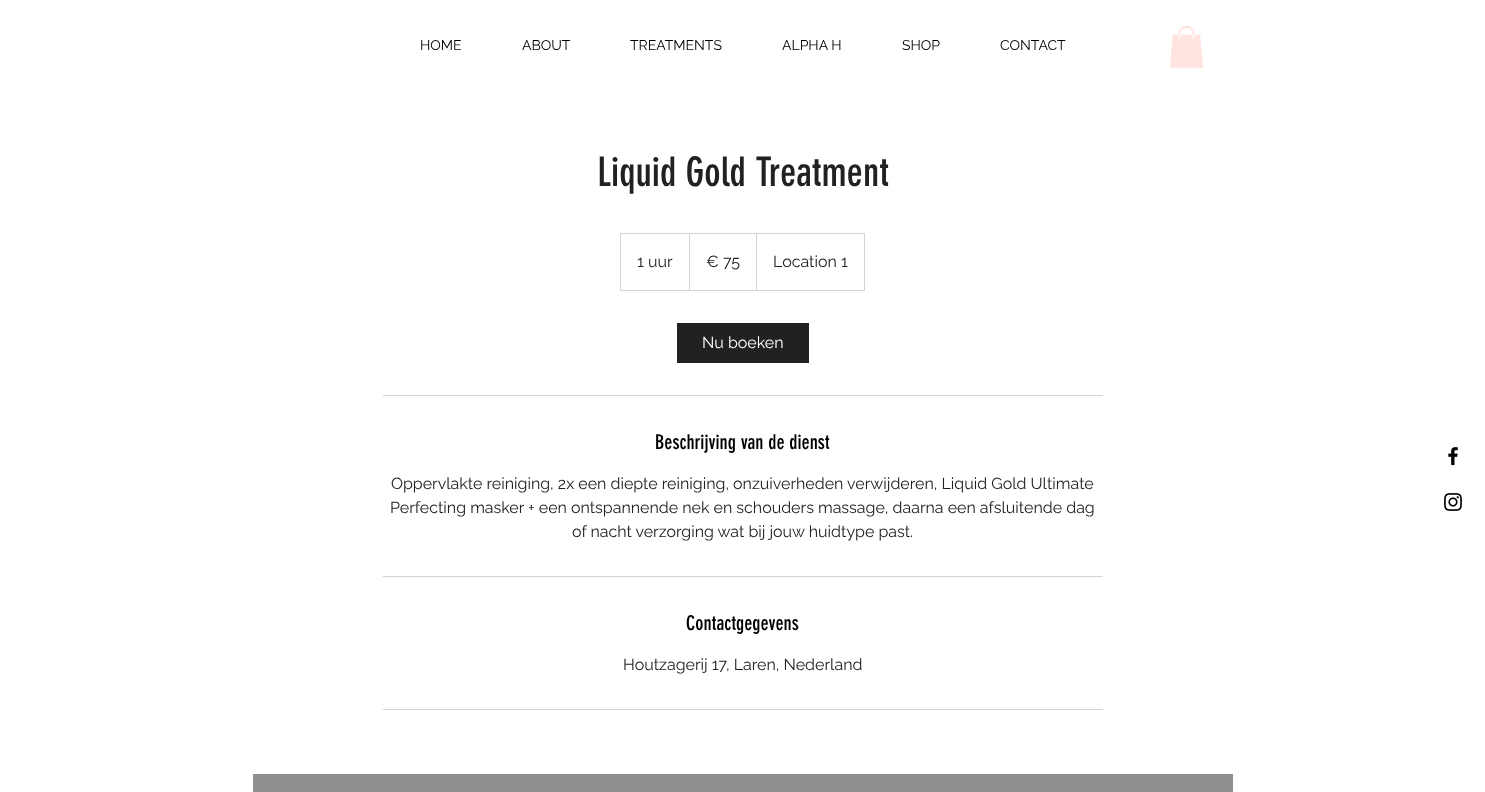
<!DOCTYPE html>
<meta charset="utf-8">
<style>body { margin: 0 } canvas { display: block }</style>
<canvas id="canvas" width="1485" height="792"></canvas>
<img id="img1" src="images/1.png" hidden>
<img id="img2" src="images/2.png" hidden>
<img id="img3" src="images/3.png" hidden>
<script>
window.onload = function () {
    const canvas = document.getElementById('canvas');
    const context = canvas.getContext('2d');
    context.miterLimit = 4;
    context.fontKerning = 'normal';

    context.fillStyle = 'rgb(255, 255, 255)';
    context.fillRect(0, 0, 1485, 792);
    context.drawImage(document.getElementById('img1'), 1170, 26, 34, 42);
    context.strokeStyle = 'rgb(211, 211, 211)';
    context.strokeRect(620.5, 233.5, 244, 57);
    context.fillStyle = 'rgb(211, 211, 211)';
    context.beginPath();
    context.moveTo(689, 290);
    context.lineTo(689, 233);
    context.lineTo(690, 234);
    context.lineTo(690, 290);
    context.closePath();
    context.fill();
    context.beginPath();
    context.moveTo(756, 290);
    context.lineTo(756, 233);
    context.lineTo(757, 234);
    context.lineTo(757, 290);
    context.closePath();
    context.fill();
    context.fillStyle = 'rgb(33, 33, 33)';
    context.fillRect(677, 323, 132, 40);
    context.fillStyle = 'rgb(211, 211, 211)';
    context.fillRect(383, 395, 720, 1);
    context.fillRect(383, 576, 720, 1);
    context.fillRect(383, 709, 720, 1);
    context.drawImage(document.getElementById('img2'), 1448, 446, 10, 20);
    context.drawImage(document.getElementById('img3'), 1444, 493, 18, 18);
    context.fillStyle = 'rgb(143, 143, 143)';
    context.fillRect(253, 774, 980, 18);
    context.font = '14px Raleway';
    context.fillStyle = 'rgb(0, 0, 0)';
    context.fillText('HOME', 420, 50);
    context.fillText('ABOUT', 522, 50);
    context.fillText('TREATMENTS', 630, 50);
    context.fillText('ALPHA H', 782, 50);
    context.fillText('SHOP', 902, 50);
    context.fillText('CONTACT', 1000, 50);
    context.font = '40px "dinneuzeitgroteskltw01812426"';
    context.fillStyle = 'rgb(33, 33, 33)';
    context.fillText('Liquid Gold Treatment', 597, 186);
    context.font = '16px Raleway';
    context.fillText('1 uur', 637, 267);
    context.fillText('€ 75', 706, 267);
    context.fillText('Location 1', 773, 267);
    context.fillStyle = 'rgb(255, 255, 255)';
    context.fillText('Nu boeken', 702, 348);
    context.font = '20px "dinneuzeitgroteskltw01812426"';
    context.fillStyle = 'rgb(0, 0, 0)';
    context.fillText('Beschrijving van de dienst', 655, 449);
    context.font = '16px Raleway';
    context.fillStyle = 'rgb(33, 33, 33)';
    context.fillText('Oppervlakte reiniging, 2x een diepte reiniging, onzuiverheden verwijderen, Liquid Gold Ultimate', 391, 489);
    context.fillText('Perfecting masker + een ontspannende nek en schouders massage, daarna een afsluitende dag', 390, 513);
    context.fillText('of nacht verzorging wat bij jouw huidtype past.', 572, 537);
    context.font = '20px "dinneuzeitgroteskltw01812426"';
    context.fillStyle = 'rgb(0, 0, 0)';
    context.fillText('Contactgegevens', 686, 630);
    context.font = '16px Raleway';
    context.fillStyle = 'rgb(33, 33, 33)';
    context.fillText('Houtzagerij 17, Laren, Nederland', 623, 670);
};
</script>
